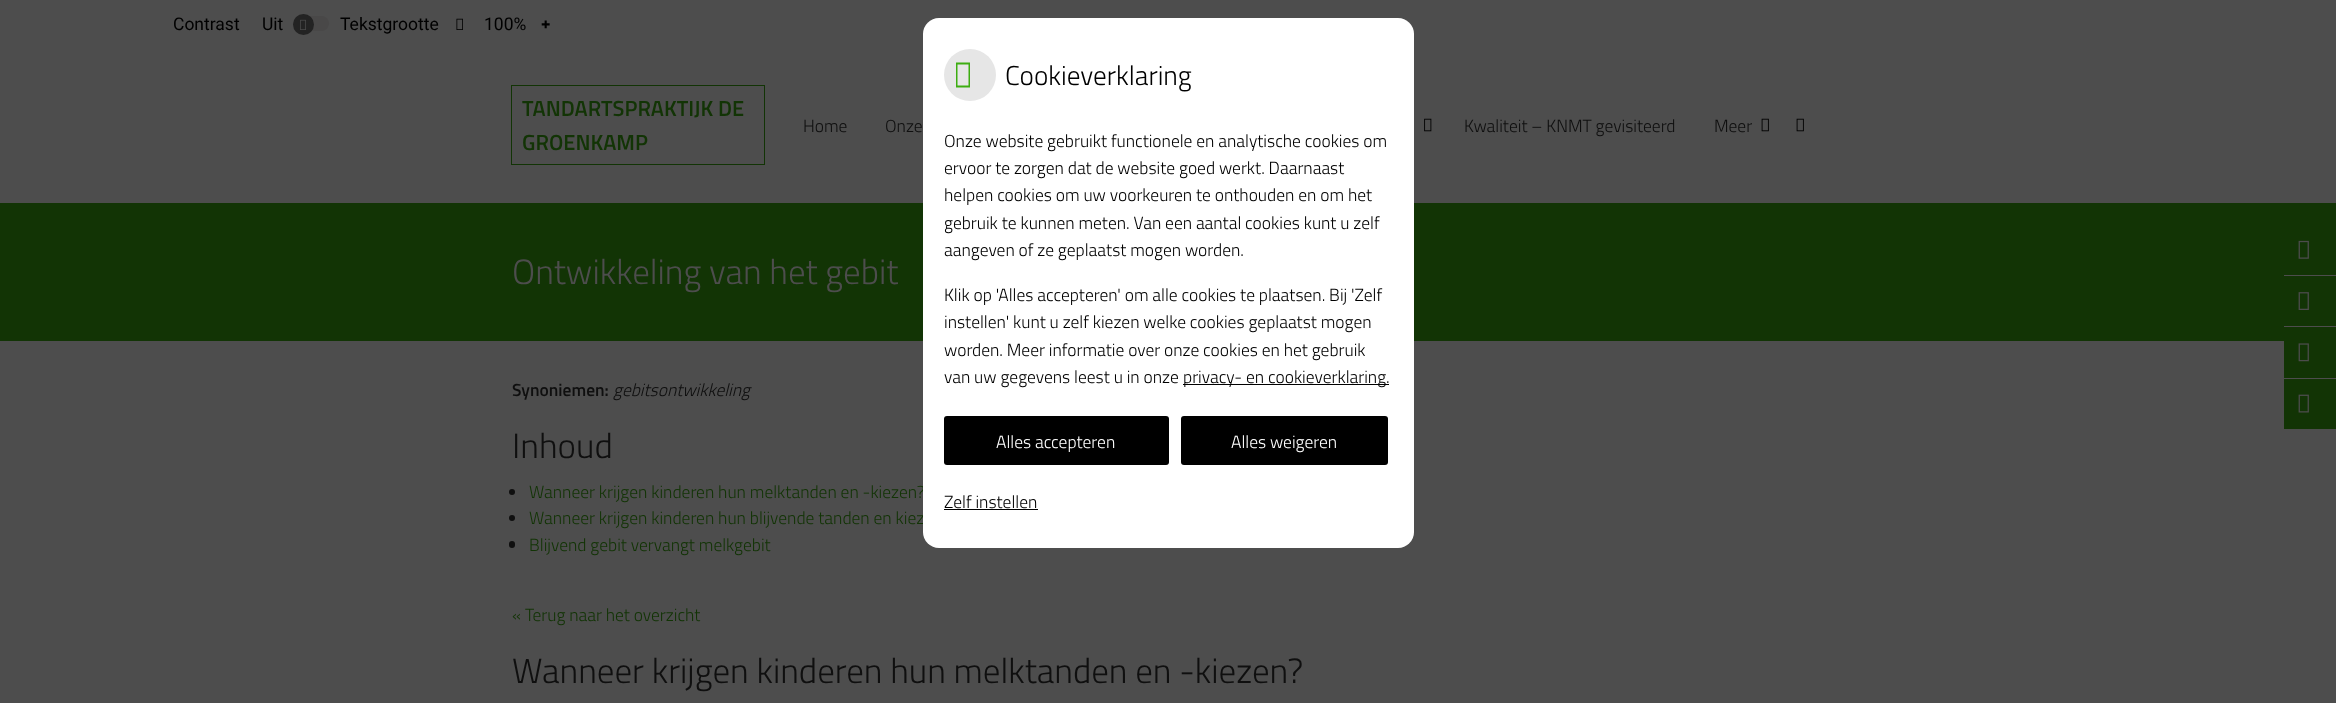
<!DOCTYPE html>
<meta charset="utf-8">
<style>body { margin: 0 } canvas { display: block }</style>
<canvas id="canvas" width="2336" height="703"></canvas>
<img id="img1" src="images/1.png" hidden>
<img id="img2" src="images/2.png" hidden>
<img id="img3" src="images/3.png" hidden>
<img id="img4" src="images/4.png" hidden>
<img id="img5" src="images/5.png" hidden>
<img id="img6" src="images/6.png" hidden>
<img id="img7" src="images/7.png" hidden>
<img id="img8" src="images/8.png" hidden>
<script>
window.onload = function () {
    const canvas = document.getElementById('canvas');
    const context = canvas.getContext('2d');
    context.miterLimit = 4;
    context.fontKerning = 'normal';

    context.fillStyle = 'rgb(77, 77, 77)';
    context.fillRect(0, 0, 2336, 703);
    context.fillStyle = 'rgb(73, 72, 72)';
    context.beginPath();
    context.roundRect(293, 16, 36, 15, 7.5);
    context.fill();
    context.fillStyle = 'rgb(35, 35, 35)';
    context.beginPath();
    context.arc(303.5, 24.5, 10.5, 0, 2 * Math.PI);
    context.fill();
    context.drawImage(document.getElementById('img1'), 300, 19, 6, 11);
    context.drawImage(document.getElementById('img2'), 456, 18, 7, 12);
    context.strokeStyle = 'rgb(18, 52, 5)';
    context.strokeRect(511.5, 85.5, 253, 79);
    context.drawImage(document.getElementById('img3'), 1424, 118, 8, 14);
    context.drawImage(document.getElementById('img4'), 1761, 118, 8, 14);
    context.drawImage(document.getElementById('img4'), 1796, 118, 8, 14);
    context.fillStyle = 'rgb(18, 52, 5)';
    context.fillRect(0, 203, 2336, 138);
    context.fillRect(2284, 341, 52, 88);
    context.fillStyle = 'rgb(77, 77, 77)';
    context.fillRect(2284, 275, 52, 1);
    context.drawImage(document.getElementById('img5'), 2298, 240, 11, 19);
    context.fillRect(2284, 326, 52, 1);
    context.drawImage(document.getElementById('img6'), 2298, 292, 11, 18);
    context.fillRect(2284, 378, 52, 1);
    context.drawImage(document.getElementById('img7'), 2298, 343, 11, 19);
    context.drawImage(document.getElementById('img8'), 2298, 394, 11, 19);
    context.fillStyle = 'rgb(15, 15, 15)';
    context.beginPath();
    context.arc(512, 492, 3, 0, 2 * Math.PI);
    context.fill();
    context.beginPath();
    context.arc(512, 518, 3, 0, 2 * Math.PI);
    context.fill();
    context.beginPath();
    context.roundRect(509, 541, 6, 7, 3);
    context.fill();
    context.font = '17.5px Roboto';
    context.fillStyle = 'rgb(0, 0, 0)';
    context.fillText('Contrast', 173, 30);
    context.fillText('Uit', 262, 30);
    context.fillText('Tekstgrootte', 340, 30);
    context.fillText('100%', 484, 30);
    context.font = '900 16px Noto Sans';
    context.fillText('+', 541, 30);
    context.font = '600 21.9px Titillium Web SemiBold';
    context.fillStyle = 'rgb(18, 52, 5)';
    context.fillText('TANDARTSPRAKTIJK DE', 522, 116);
    context.fillText('GROENKAMP', 522, 150);
    context.font = '300 17.5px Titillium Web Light';
    context.fillStyle = 'rgb(15, 15, 15)';
    context.fillText('Home', 803, 132);
    context.fillText('Onze', 885, 132);
    context.fillText('Kwaliteit – KNMT gevisiteerd', 1464, 132);
    context.fillText('Meer', 1714, 132);
    context.font = '300 35px Titillium Web Light';
    context.fillStyle = 'rgb(77, 77, 77)';
    context.fillText('Ontwikkeling van het gebit', 512, 284);
    context.font = '600 17.5px Titillium Web SemiBold';
    context.fillStyle = 'rgb(15, 15, 15)';
    context.fillText('Synoniemen:', 512, 396);
    context.font = 'italic 300 17.5px Titillium Web Light';
    context.fillText('gebitsontwikkeling', 613, 396);
    context.font = '300 35px Titillium Web Light';
    context.fillText('Inhoud', 512, 458);
    context.font = '300 17.5px Titillium Web Light';
    context.fillStyle = 'rgb(18, 52, 5)';
    context.fillText('Wanneer krijgen kinderen hun melktanden en -kiezen?', 529, 498);
    context.fillText('Wanneer krijgen kinderen hun blijvende tanden en kiez', 529, 524);
    context.fillStyle = 'rgb(255, 255, 255)';
    context.beginPath();
    context.roundRect(923, 18, 491, 530, 16);
    context.fill();
    context.fillStyle = 'rgb(0, 0, 0)';
    context.fillText('Zelf instellen', 944, 508);
    context.fillRect(944, 509, 94, 1);
    context.beginPath();
    context.roundRect(1181, 416, 207, 49, 3);
    context.fill();
    context.fillStyle = 'rgb(255, 255, 255)';
    context.fillText('Alles weigeren', 1231, 448);
    context.fillStyle = 'rgb(0, 0, 0)';
    context.beginPath();
    context.roundRect(944, 416, 225, 49, 3);
    context.fill();
    context.fillStyle = 'rgb(255, 255, 255)';
    context.fillText('Alles accepteren', 996, 448);
    context.fillStyle = 'rgb(0, 0, 0)';
    context.fillRect(1183, 384, 206, 1);
    context.fillText('privacy- en cookieverklaring.', 1183, 383);
    context.fillText('van uw gegevens leest u in onze', 944, 383);
    context.fillText('worden. Meer informatie over onze cookies en het gebruik', 944, 356);
    context.fillText('instellen\' kunt u zelf kiezen welke cookies geplaatst mogen', 944, 328);
    context.fillText('Klik op \'Alles accepteren\' om alle cookies te plaatsen. Bij \'Zelf', 944, 301);
    context.fillText('aangeven of ze geplaatst mogen worden.', 944, 256);
    context.fillText('gebruik te kunnen meten. Van een aantal cookies kunt u zelf', 944, 229);
    context.fillText('helpen cookies om uw voorkeuren te onthouden en om het', 944, 201);
    context.fillText('ervoor te zorgen dat de website goed werkt. Daarnaast', 944, 174);
    context.fillText('Onze website gebruikt functionele en analytische cookies om', 944, 147);
    context.font = '300 27.25px Titillium Web Light';
    context.fillText('Cookieverklaring', 1005, 85);
    context.fillStyle = 'rgb(230, 230, 230)';
    context.beginPath();
    context.arc(970, 75, 26, 0, 2 * Math.PI);
    context.fill();
    context.fillStyle = 'rgb(61, 173, 17)';
    context.beginPath();
    context.moveTo(956, 87.5);
    context.lineTo(956, 62.5);
    context.lineTo(970, 62.5);
    context.lineTo(970, 87.5);
    context.closePath();
    context.moveTo(957.5, 85.5);
    context.lineTo(968.5, 85.5);
    context.lineTo(968.5, 64.5);
    context.lineTo(957.5, 64.5);
    context.closePath();
    context.fill();
    context.font = '300 17.5px Titillium Web Light';
    context.fillStyle = 'rgb(18, 52, 5)';
    context.fillText('Blijvend gebit vervangt melkgebit', 529, 551);
    context.fillText('« Terug naar het overzicht', 512, 621);
    context.font = '300 35px Titillium Web Light';
    context.fillStyle = 'rgb(15, 15, 15)';
    context.fillText('Wanneer krijgen kinderen hun melktanden en -kiezen?', 512, 683);
};
</script>
